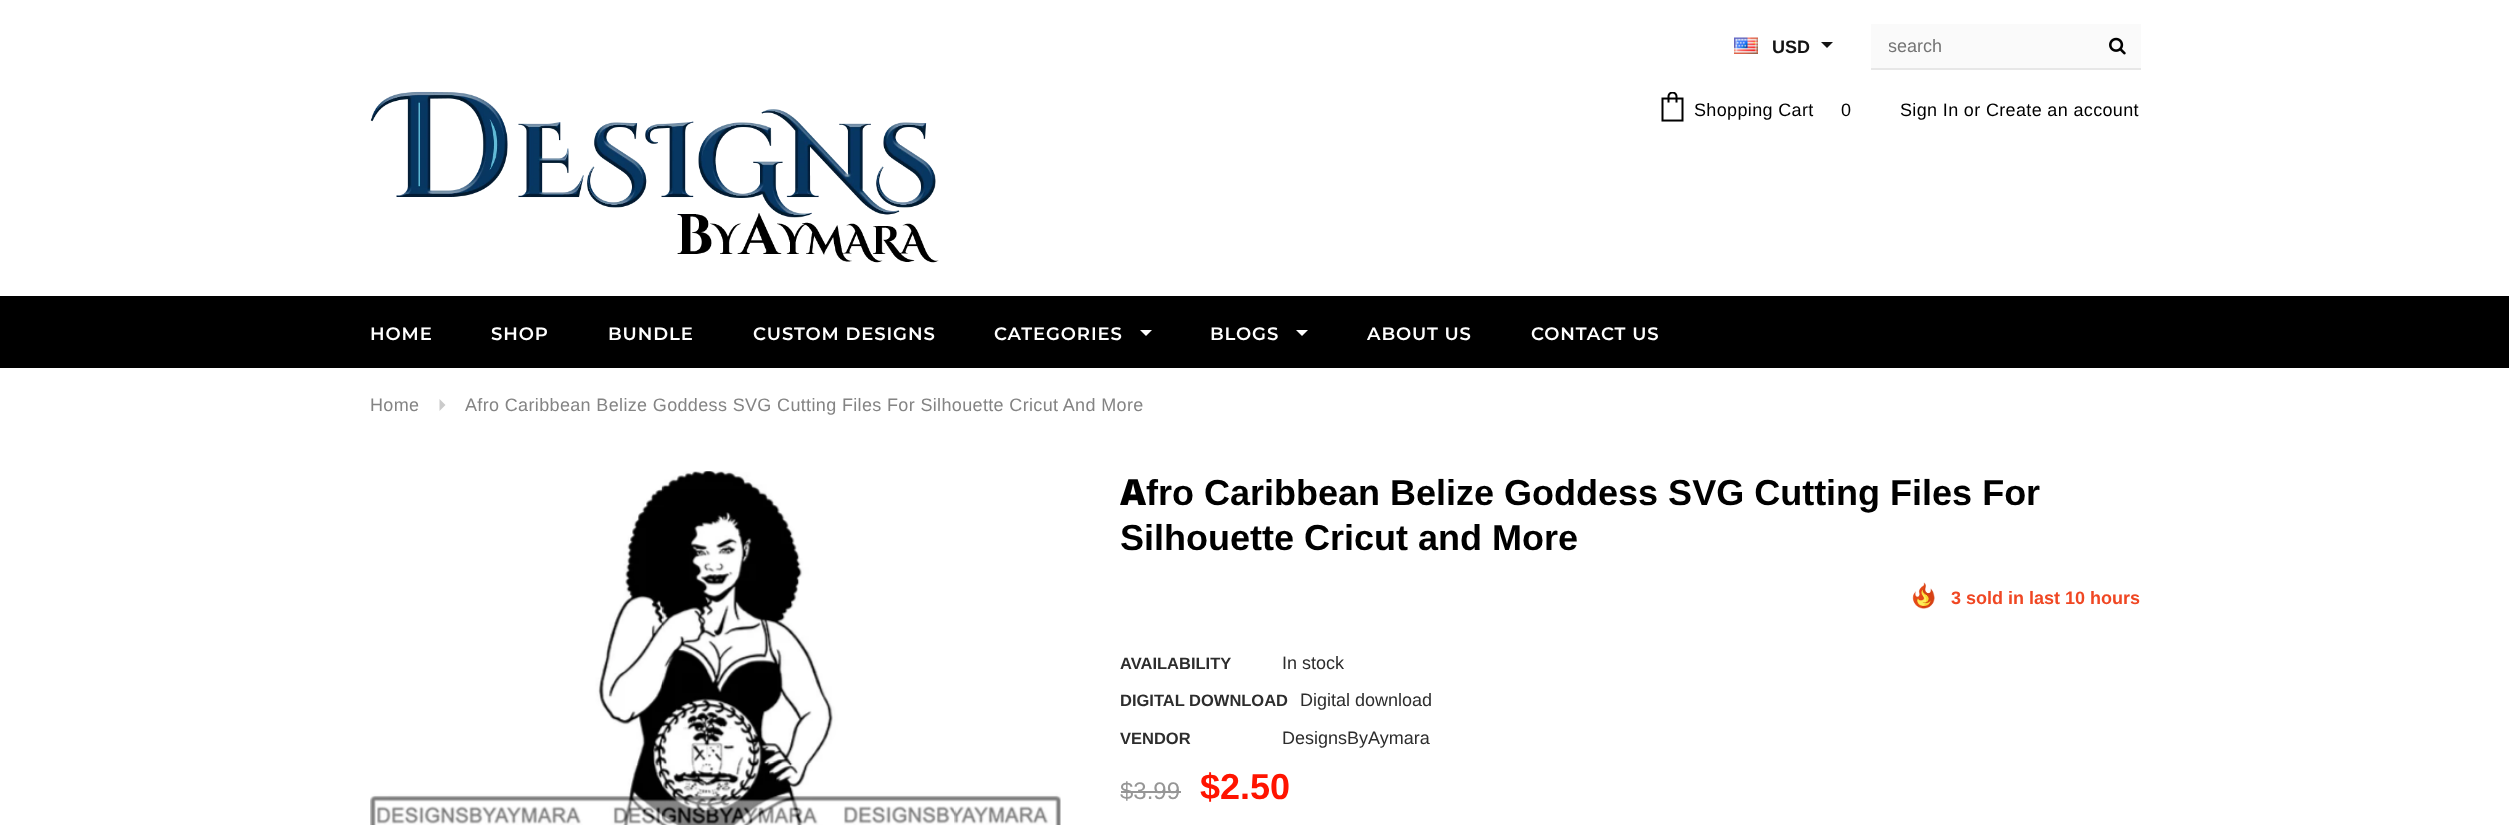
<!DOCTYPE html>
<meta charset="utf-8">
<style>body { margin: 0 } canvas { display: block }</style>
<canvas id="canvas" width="2509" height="825"></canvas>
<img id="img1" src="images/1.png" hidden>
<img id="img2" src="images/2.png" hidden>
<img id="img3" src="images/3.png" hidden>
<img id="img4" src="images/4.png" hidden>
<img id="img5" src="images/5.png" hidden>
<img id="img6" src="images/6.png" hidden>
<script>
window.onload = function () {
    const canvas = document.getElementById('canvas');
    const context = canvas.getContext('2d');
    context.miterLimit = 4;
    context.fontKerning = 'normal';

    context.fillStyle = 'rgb(255, 255, 255)';
    context.fillRect(0, 0, 2509, 825);
    context.drawImage(document.getElementById('img1'), 1734, 37, 24, 17);
    context.fillStyle = 'rgb(20, 20, 20)';
    context.beginPath();
    context.moveTo(1821, 42);
    context.lineTo(1833, 42);
    context.lineTo(1827, 48);
    context.closePath();
    context.fill();
    context.fillStyle = 'rgb(250, 250, 250)';
    context.fillRect(1871, 24, 270, 44);
    context.fillStyle = 'rgb(231, 231, 231)';
    context.fillRect(1871, 68, 270, 2);
    context.drawImage(document.getElementById('img2'), 2109, 37, 17, 18);
    context.drawImage(document.getElementById('img3'), 370, 91, 569, 172);
    context.drawImage(document.getElementById('img4'), 1661, 92, 23, 30);
    context.fillStyle = 'rgb(0, 0, 0)';
    context.fillRect(0, 296, 2509, 72);
    context.fillStyle = 'rgb(255, 255, 255)';
    context.beginPath();
    context.moveTo(1140, 330);
    context.lineTo(1152, 330);
    context.lineTo(1146, 336);
    context.closePath();
    context.fill();
    context.beginPath();
    context.moveTo(1296, 330);
    context.lineTo(1308, 330);
    context.lineTo(1302, 336);
    context.closePath();
    context.fill();
    context.fillStyle = 'rgb(203, 203, 203)';
    context.beginPath();
    context.moveTo(439.5, 411);
    context.lineTo(439.5, 399);
    context.lineTo(445.5, 405);
    context.closePath();
    context.fill();
    context.drawImage(document.getElementById('img5'), 370, 471, 691, 354);
    context.drawImage(document.getElementById('img6'), 1912, 582, 23, 27);
    context.fillStyle = 'rgb(150, 150, 150)';
    context.fillRect(1121, 791, 60, 2);
    context.font = 'bold 18px Arimo';
    context.fillStyle = 'rgb(20, 20, 20)';
    context.fillText('USD', 1772, 53);
    context.save();
    context.beginPath();
    context.rect(1889, 36, 207, 21);
    context.clip();
    context.font = '18px Arimo';
    context.fillStyle = 'rgb(117, 117, 117)';
    context.fillText('search', 1888, 52);
    context.restore();
    context.letterSpacing = '0.35px';
    context.font = '18px Arimo';
    context.fillStyle = 'rgb(0, 0, 0)';
    context.fillText('Shopping Cart', 1694, 116);
    context.fillText('0', 1841, 116);
    context.fillText('Sign In or Create an account', 1900, 116);
    context.letterSpacing = '0.9px';
    context.font = '600 18px Montserrat';
    context.fillStyle = 'rgb(255, 255, 255)';
    context.fillText('HOME', 370, 340);
    context.fillText('SHOP', 491, 340);
    context.fillText('BUNDLE', 608, 340);
    context.fillText('CUSTOM DESIGNS', 753, 340);
    context.fillText('CATEGORIES', 994, 340);
    context.fillText('BLOGS', 1210, 340);
    context.fillText('ABOUT US', 1367, 340);
    context.fillText('CONTACT US', 1531, 340);
    context.letterSpacing = '0.35px';
    context.font = '18px Arimo';
    context.fillStyle = 'rgb(132, 132, 132)';
    context.fillText('Home', 370, 411);
    context.fillText('Afro Caribbean Belize Goddess SVG Cutting Files For Silhouette Cricut And More', 465, 411);
    context.letterSpacing = '0px';
    context.font = '900 36px Noto Sans';
    context.fillStyle = 'rgb(0, 0, 0)';
    context.fillText('A', 1120, 505);
    context.font = 'bold 36px Arimo';
    context.fillText('fro Caribbean Belize Goddess SVG Cutting Files For', 1146, 505);
    context.fillText('Silhouette Cricut and More', 1120, 550);
    context.font = 'bold 18px Arimo';
    context.fillStyle = 'rgb(240, 71, 35)';
    context.fillText('3 sold in last 10 hours', 1951, 604);
    context.font = 'bold 16.5px Arimo';
    context.fillStyle = 'rgb(45, 45, 45)';
    context.fillText('AVAILABILITY', 1120, 669);
    context.font = '18px Arimo';
    context.fillText('In stock', 1282, 669);
    context.font = 'bold 16.5px Arimo';
    context.fillText('DIGITAL DOWNLOAD', 1120, 706);
    context.font = '18px Arimo';
    context.fillText('Digital download', 1300, 706);
    context.font = 'bold 16.5px Arimo';
    context.fillText('VENDOR', 1120, 744);
    context.font = '18px Arimo';
    context.fillText('DesignsByAymara', 1282, 744);
    context.font = '24px Arimo';
    context.fillStyle = 'rgb(150, 150, 150)';
    context.fillText('$3.99', 1120, 799);
    context.font = 'bold 36px Arimo';
    context.fillStyle = 'rgb(255, 20, 0)';
    context.fillText('$2.50', 1200, 799);
};
</script>
